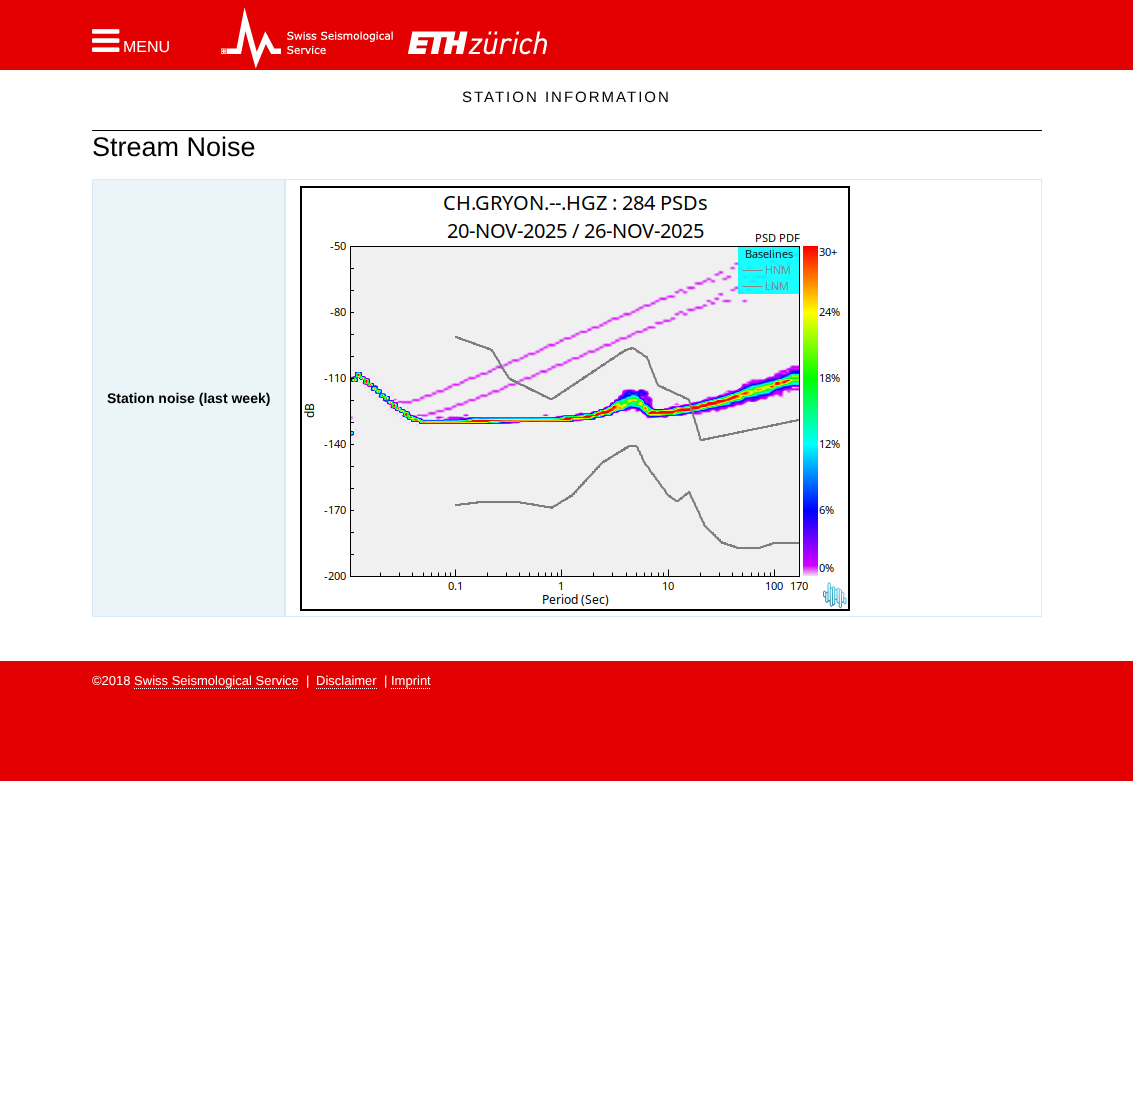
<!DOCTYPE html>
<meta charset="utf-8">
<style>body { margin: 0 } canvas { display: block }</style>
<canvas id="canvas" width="1133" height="1097"></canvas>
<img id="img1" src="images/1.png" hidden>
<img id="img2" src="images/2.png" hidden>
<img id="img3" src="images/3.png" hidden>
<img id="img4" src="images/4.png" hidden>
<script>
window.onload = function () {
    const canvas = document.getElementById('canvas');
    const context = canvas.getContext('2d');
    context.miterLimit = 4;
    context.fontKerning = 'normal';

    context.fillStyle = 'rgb(255, 255, 255)';
    context.fillRect(0, 0, 1133, 1097);
    context.fillStyle = 'rgb(226, 0, 0)';
    context.fillRect(0, 0, 1133, 70);
    context.drawImage(document.getElementById('img1'), 92, 29, 28, 23);
    context.drawImage(document.getElementById('img2'), 221, 8, 172, 60);
    context.drawImage(document.getElementById('img3'), 408, 31, 139, 24);
    context.fillStyle = 'rgb(0, 0, 0)';
    context.fillRect(92, 130, 950, 1);
    context.fillStyle = 'rgb(235, 244, 249)';
    context.beginPath();
    context.rect(92.5, 179.5, 192, 437);
    context.fill();
    context.strokeStyle = 'rgb(216, 234, 244)';
    context.stroke();
    context.strokeRect(285.5, 179.5, 756, 437);
    context.drawImage(document.getElementById('img4'), 300, 186, 550, 425);
    context.fillStyle = 'rgb(226, 0, 0)';
    context.fillRect(0, 661, 1133, 120);
    context.beginPath();
    context.moveTo(316, 688.5);
    context.lineTo(377, 688.5);
    context.strokeStyle = 'rgb(255, 255, 255)';
    context.setLineDash([1, 1]);
    context.stroke();
    context.beginPath();
    context.moveTo(134, 688.5);
    context.lineTo(298, 688.5);
    context.stroke();
    context.beginPath();
    context.moveTo(391, 688.5);
    context.lineTo(431, 688.5);
    context.stroke();
    context.font = '16px Liberation Sans';
    context.fillStyle = 'rgb(255, 255, 255)';
    context.fillText('MENU', 123, 52);
    context.letterSpacing = '2px';
    context.font = '15px Liberation Sans';
    context.fillStyle = 'rgb(0, 0, 0)';
    context.fillText('STATION INFORMATION', 462, 102);
    context.letterSpacing = '0px';
    context.font = '27px Liberation Sans';
    context.fillText('Stream Noise', 92, 156);
    context.font = 'bold 14px Liberation Sans';
    context.fillText('Station noise (last week)', 107, 403);
    context.font = '13px Liberation Sans';
    context.fillStyle = 'rgb(255, 255, 255)';
    context.fillText('©2018 Swiss Seismological Service', 92, 685);
    context.fillText('|', 306, 685);
    context.fillText('Disclaimer', 316, 685);
    context.fillText('| Imprint', 384, 685);
};
</script>
